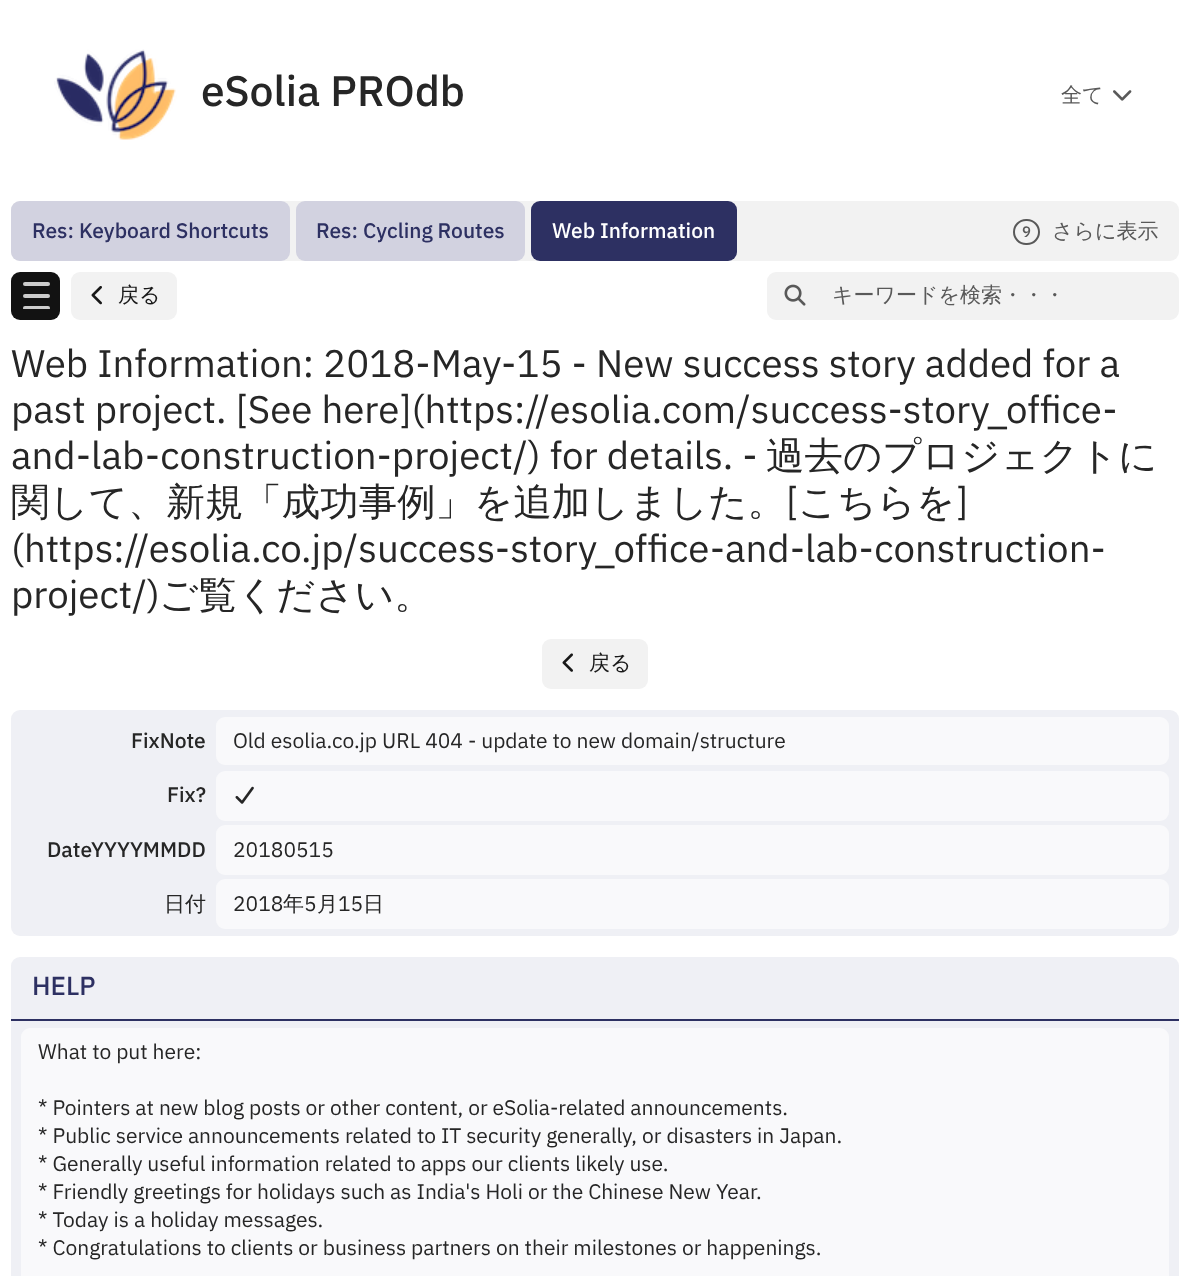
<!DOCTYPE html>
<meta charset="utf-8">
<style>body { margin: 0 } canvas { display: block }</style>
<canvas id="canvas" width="1189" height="1276"></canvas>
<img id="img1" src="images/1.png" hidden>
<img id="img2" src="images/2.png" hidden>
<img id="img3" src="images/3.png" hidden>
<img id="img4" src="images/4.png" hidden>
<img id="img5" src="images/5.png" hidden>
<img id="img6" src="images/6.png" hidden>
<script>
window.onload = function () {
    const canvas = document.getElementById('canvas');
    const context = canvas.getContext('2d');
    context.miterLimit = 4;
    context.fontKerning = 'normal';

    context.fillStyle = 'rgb(255, 255, 255)';
    context.fillRect(0, 0, 1189, 1276);
    context.drawImage(document.getElementById('img1'), 54, 49, 123, 91);
    context.drawImage(document.getElementById('img2'), 1113, 90, 19, 11);
    context.fillStyle = 'rgb(242, 242, 242)';
    context.beginPath();
    context.roundRect(11, 201, 1168, 60, 9);
    context.fill();
    context.fillStyle = 'rgb(210, 210, 224)';
    context.beginPath();
    context.roundRect(11, 201, 279, 60, 9);
    context.fill();
    context.beginPath();
    context.roundRect(296, 201, 229, 60, 9);
    context.fill();
    context.fillStyle = 'rgb(45, 48, 98)';
    context.beginPath();
    context.roundRect(531, 201, 206, 60, 9);
    context.fill();
    context.beginPath();
    context.roundRect(1014, 220, 25, 24, 12);
    context.strokeStyle = 'rgb(89, 89, 89)';
    context.lineWidth = 2;
    context.stroke();
    context.fillStyle = 'rgb(18, 18, 18)';
    context.beginPath();
    context.roundRect(11, 272, 49, 48, 9);
    context.fill();
    context.fillStyle = 'rgb(204, 204, 204)';
    context.beginPath();
    context.roundRect(23, 282, 27, 4, 2);
    context.fill();
    context.beginPath();
    context.roundRect(23, 294, 27, 4, 2);
    context.fill();
    context.save();
    context.beginPath();
    context.rect(23, 282, 27, 27);
    context.clip();
    context.beginPath();
    context.roundRect(23, 306, 27, 4, 2);
    context.fill();
    context.restore();
    context.fillStyle = 'rgb(242, 242, 242)';
    context.beginPath();
    context.roundRect(71, 272, 106, 48, 9);
    context.fill();
    context.drawImage(document.getElementById('img3'), 91, 286, 11, 19);
    context.beginPath();
    context.roundRect(768.5, 273.5, 409, 45, 7.5);
    context.fill();
    context.strokeStyle = 'rgb(242, 242, 242)';
    context.lineWidth = 3;
    context.stroke();
    context.drawImage(document.getElementById('img4'), 784, 284, 22, 22);
    context.beginPath();
    context.roundRect(542, 639, 106, 50, 9);
    context.fill();
    context.drawImage(document.getElementById('img5'), 562, 653, 11, 19);
    context.fillStyle = 'rgb(239, 240, 245)';
    context.beginPath();
    context.roundRect(11, 710, 1168, 226, 9);
    context.fill();
    context.fillStyle = 'rgb(249, 249, 251)';
    context.beginPath();
    context.roundRect(216, 717, 953, 48, 9);
    context.fill();
    context.beginPath();
    context.roundRect(216, 771, 953, 50, 9);
    context.fill();
    context.drawImage(document.getElementById('img6'), 235, 786, 19, 18);
    context.beginPath();
    context.roundRect(216, 825, 953, 50, 9);
    context.fill();
    context.beginPath();
    context.roundRect(216, 879, 953, 50, 9);
    context.fill();
    context.fillStyle = 'rgb(239, 240, 245)';
    context.beginPath();
    context.roundRect(11, 957, 1168, 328, 9);
    context.fill();
    context.fillStyle = 'rgb(45, 48, 98)';
    context.fillRect(11, 1019, 1168, 2);
    context.fillStyle = 'rgb(249, 249, 251)';
    context.beginPath();
    context.roundRect(21, 1028, 1148, 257, 9);
    context.fill();
    context.font = '500 42.5px IBM Plex Sans';
    context.fillStyle = 'rgb(38, 38, 38)';
    context.fillText('eSolia PROdb', 201, 106);
    context.font = '500 21px WenQuanYi Zen Hei';
    context.fillStyle = 'rgb(89, 89, 89)';
    context.fillText('全て', 1061, 102);
    context.font = '500 21px IBM Plex Sans';
    context.fillStyle = 'rgb(45, 48, 98)';
    context.fillText('Res: Keyboard Shortcuts', 32, 238);
    context.fillText('Res: Cycling Routes', 316, 238);
    context.fillStyle = 'rgb(255, 255, 255)';
    context.fillText('Web Information', 552, 238);
    context.font = '500 15px IBM Plex Sans';
    context.fillStyle = 'rgb(89, 89, 89)';
    context.fillText('9', 1022, 237);
    context.font = '500 21px WenQuanYi Zen Hei';
    context.fillText('さらに表示', 1052, 238);
    context.fillStyle = 'rgb(24, 24, 24)';
    context.fillText('戻る', 118, 302);
    context.fillStyle = 'rgb(89, 89, 89)';
    context.fillText('キーワードを検索・・・', 832, 302);
    context.font = '38.45px IBM Plex Sans';
    context.fillStyle = 'rgb(38, 38, 38)';
    context.fillText('Web Information: 2018-May-15 - New success story added for a', 11, 377);
    context.fillText('past project. [See here](https://esolia.com/success-story_office-', 11, 423);
    context.fillText('and-lab-construction-project/) for details. -', 11, 469);
    context.font = '500 38.45px WenQuanYi Zen Hei';
    context.fillText('過去のプロジェクトに', 766, 469);
    context.fillText('関して、新規「成功事例」を追加しました。', 11, 515);
    context.font = '38.45px IBM Plex Sans';
    context.fillText('[', 786, 515);
    context.font = '500 38.45px WenQuanYi Zen Hei';
    context.fillText('こちらを', 798, 515);
    context.font = '38.45px IBM Plex Sans';
    context.fillText(']', 956, 515);
    context.fillText('(https://esolia.co.jp/success-story_office-and-lab-construction-', 11, 562);
    context.fillText('project/)', 11, 608);
    context.font = '500 38.45px WenQuanYi Zen Hei';
    context.fillText('ご覧ください。', 159, 608);
    context.font = '500 21px WenQuanYi Zen Hei';
    context.fillStyle = 'rgb(24, 24, 24)';
    context.fillText('戻る', 589, 670);
    context.font = '500 21px IBM Plex Sans';
    context.fillStyle = 'rgb(38, 38, 38)';
    context.fillText('FixNote', 131, 748);
    context.font = '21px IBM Plex Sans';
    context.fillText('Old esolia.co.jp URL 404 - update to new domain/structure', 233, 748);
    context.font = '500 21px IBM Plex Sans';
    context.fillText('Fix?', 167, 802);
    context.fillText('DateYYYYMMDD', 47, 857);
    context.font = '21px IBM Plex Sans';
    context.fillText('20180515', 233, 857);
    context.font = '500 21px WenQuanYi Zen Hei';
    context.fillText('日付', 164, 911);
    context.font = '21px IBM Plex Sans';
    context.fillText('2018', 233, 911);
    context.font = '500 21px WenQuanYi Zen Hei';
    context.fillText('年', 283, 911);
    context.font = '21px IBM Plex Sans';
    context.fillText('5', 304, 911);
    context.font = '500 21px WenQuanYi Zen Hei';
    context.fillText('月', 317, 911);
    context.font = '21px IBM Plex Sans';
    context.fillText('15', 338, 911);
    context.font = '500 21px WenQuanYi Zen Hei';
    context.fillText('日', 363, 911);
    context.font = '500 26px IBM Plex Sans';
    context.fillStyle = 'rgb(45, 48, 98)';
    context.fillText('HELP', 32, 995);
    context.font = '21px IBM Plex Sans';
    context.fillStyle = 'rgb(38, 38, 38)';
    context.fillText('What to put here:', 38, 1059);
    context.fillText('* Pointers at new blog posts or other content, or eSolia-related announcements.', 38, 1115);
    context.fillText('* Public service announcements related to IT security generally, or disasters in Japan.', 38, 1143);
    context.fillText('* Generally useful information related to apps our clients likely use.', 38, 1171);
    context.fillText('* Friendly greetings for holidays such as India\'s Holi or the Chinese New Year.', 38, 1199);
    context.fillText('* Today is a holiday messages.', 38, 1227);
    context.fillText('* Congratulations to clients or business partners on their milestones or happenings.', 38, 1255);
};
</script>
